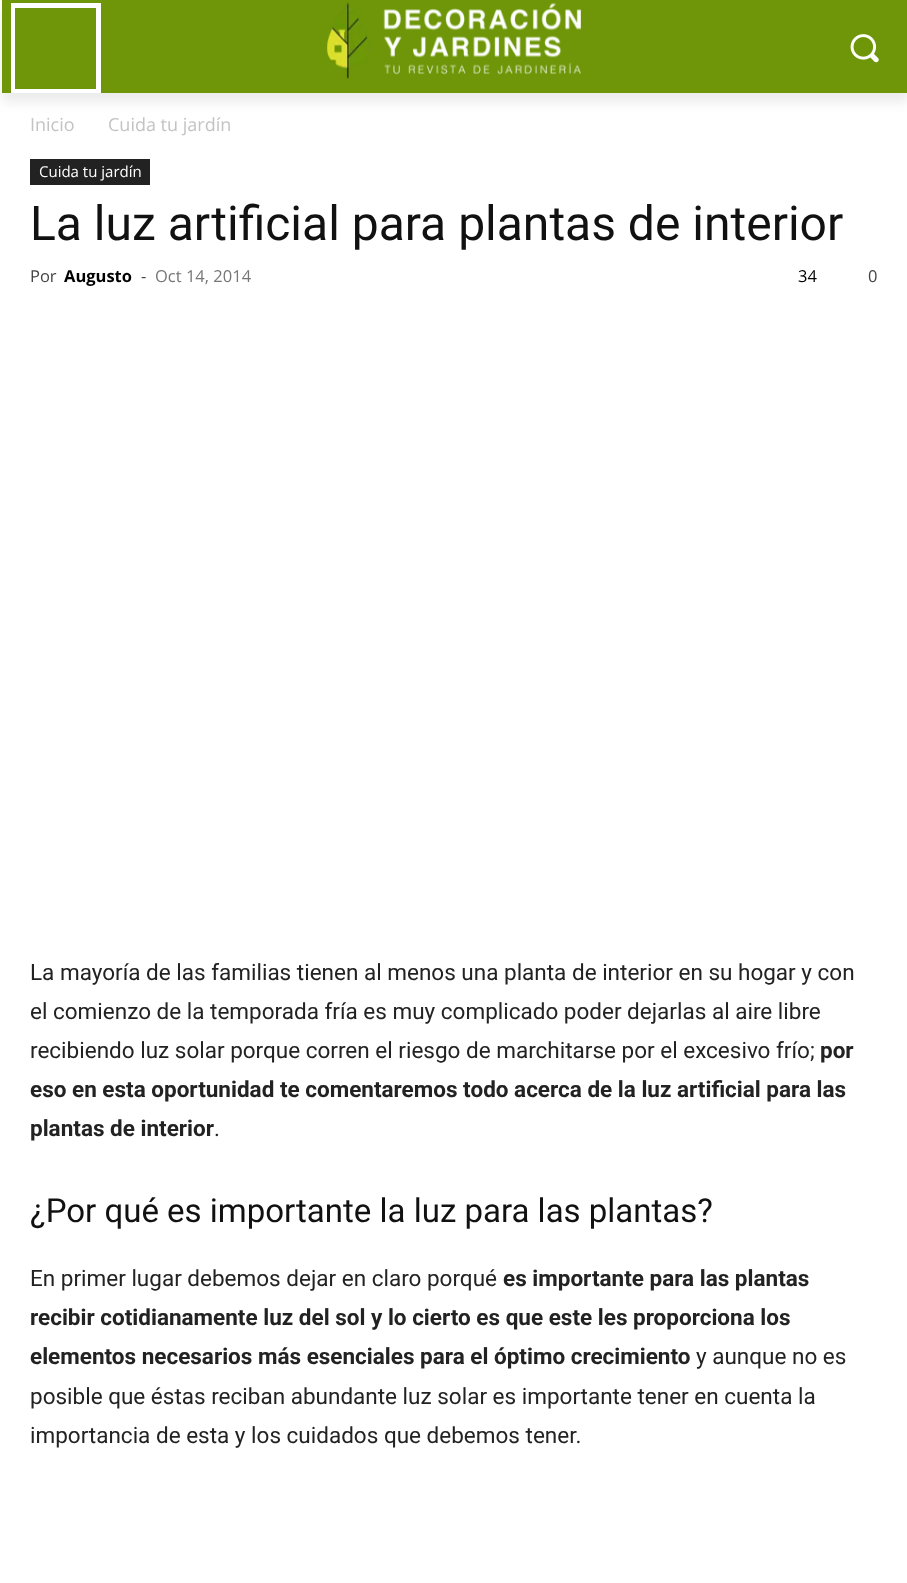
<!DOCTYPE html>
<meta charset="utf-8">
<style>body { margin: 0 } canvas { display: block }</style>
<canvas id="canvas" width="907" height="1583"></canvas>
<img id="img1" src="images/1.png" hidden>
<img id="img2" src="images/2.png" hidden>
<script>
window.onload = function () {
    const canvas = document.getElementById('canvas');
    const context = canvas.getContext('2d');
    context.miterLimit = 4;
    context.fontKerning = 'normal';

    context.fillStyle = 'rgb(255, 255, 255)';
    context.fillRect(0, 0, 907, 1583);
    context.fillStyle = 'rgb(110, 150, 8)';
    context.fillRect(2, 0, 905, 93);
    context.strokeStyle = 'rgb(255, 255, 255)';
    context.lineWidth = 5;
    context.strokeRect(13.5, 5.5, 85, 85);
    context.fillRect(15, 8, 81, 81);
    context.drawImage(document.getElementById('img1'), 327, 2, 254, 77);
    context.drawImage(document.getElementById('img2'), 850, 34, 29, 29);
    context.save();
    context.beginPath();
    context.moveTo(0, 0);
    context.lineTo(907, 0);
    context.lineTo(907, 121);
    context.lineTo(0, 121);
    context.closePath();
    context.moveTo(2, 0);
    context.lineTo(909, 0);
    context.lineTo(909, 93);
    context.lineTo(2, 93);
    context.closePath();
    context.clip('evenodd');
    context.fillStyle = 'rgba(0, 0, 0, 0.08)';
    context.filter = 'blur(6px)';
    context.beginPath();
    context.rect(2, 9, 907, 93);
    context.fill();
    context.filter = 'none';
    context.restore();
    context.fillStyle = 'rgb(34, 34, 34)';
    context.fillRect(30, 159, 120, 26);
    context.font = '18px Open Sans';
    context.fillStyle = 'rgb(195, 195, 195)';
    context.fillText('Inicio', 30, 131);
    context.fillText('Cuida tu jardín', 108, 131);
    context.font = '15px Open Sans';
    context.fillStyle = 'rgb(255, 255, 255)';
    context.fillText('Cuida tu jardín', 39, 177);
    context.font = '48px Roboto';
    context.fillStyle = 'rgb(17, 17, 17)';
    context.fillText('La luz artificial para plantas de interior', 30, 240);
    context.font = '16.5px Open Sans';
    context.fillStyle = 'rgb(68, 68, 68)';
    context.fillText('Por', 30, 282);
    context.font = 'bold 16.5px Open Sans';
    context.fillStyle = 'rgb(0, 0, 0)';
    context.fillText('Augusto', 64, 282);
    context.font = '16.5px Open Sans';
    context.fillStyle = 'rgb(68, 68, 68)';
    context.fillText('-', 141, 282);
    context.fillStyle = 'rgb(118, 118, 118)';
    context.fillText('Oct 14, 2014', 155, 282);
    context.fillStyle = 'rgb(0, 0, 0)';
    context.fillText('34', 798, 282);
    context.fillStyle = 'rgb(68, 68, 68)';
    context.fillText('0', 868, 282);
    context.font = '22.5px Roboto';
    context.fillStyle = 'rgb(34, 34, 34)';
    context.fillText('La mayoría de las familias tienen al menos una planta de interior en su hogar y con', 30, 980);
    context.fillText('el comienzo de la temporada fría es muy complicado poder dejarlas al aire libre', 30, 1019);
    context.fillText('recibiendo luz solar porque corren el riesgo de marchitarse por el excesivo frío;', 30, 1058);
    context.font = 'bold 22.5px Roboto';
    context.fillText('por', 820, 1058);
    context.fillText('eso en esta oportunidad te comentaremos todo acerca de la luz artificial para las', 30, 1097);
    context.fillText('plantas de interior', 30, 1136);
    context.font = '22.5px Roboto';
    context.fillText('.', 214, 1136);
    context.font = '33px Roboto';
    context.fillStyle = 'rgb(17, 17, 17)';
    context.fillText('¿Por qué es importante la luz para las plantas?', 30, 1222);
    context.font = '22.5px Roboto';
    context.fillStyle = 'rgb(34, 34, 34)';
    context.fillText('En primer lugar debemos dejar en claro porqué', 30, 1286);
    context.font = 'bold 22.5px Roboto';
    context.fillText('es importante para las plantas', 503, 1286);
    context.fillText('recibir cotidianamente luz del sol y lo cierto es que este les proporciona los', 30, 1325);
    context.fillText('elementos necesarios más esenciales para el óptimo crecimiento', 30, 1364);
    context.font = '22.5px Roboto';
    context.fillText('y aunque no es', 696, 1364);
    context.fillText('posible que éstas reciban abundante luz solar es importante tener en cuenta la', 30, 1404);
    context.fillText('importancia de esta y los cuidados que debemos tener.', 30, 1443);
};
</script>
